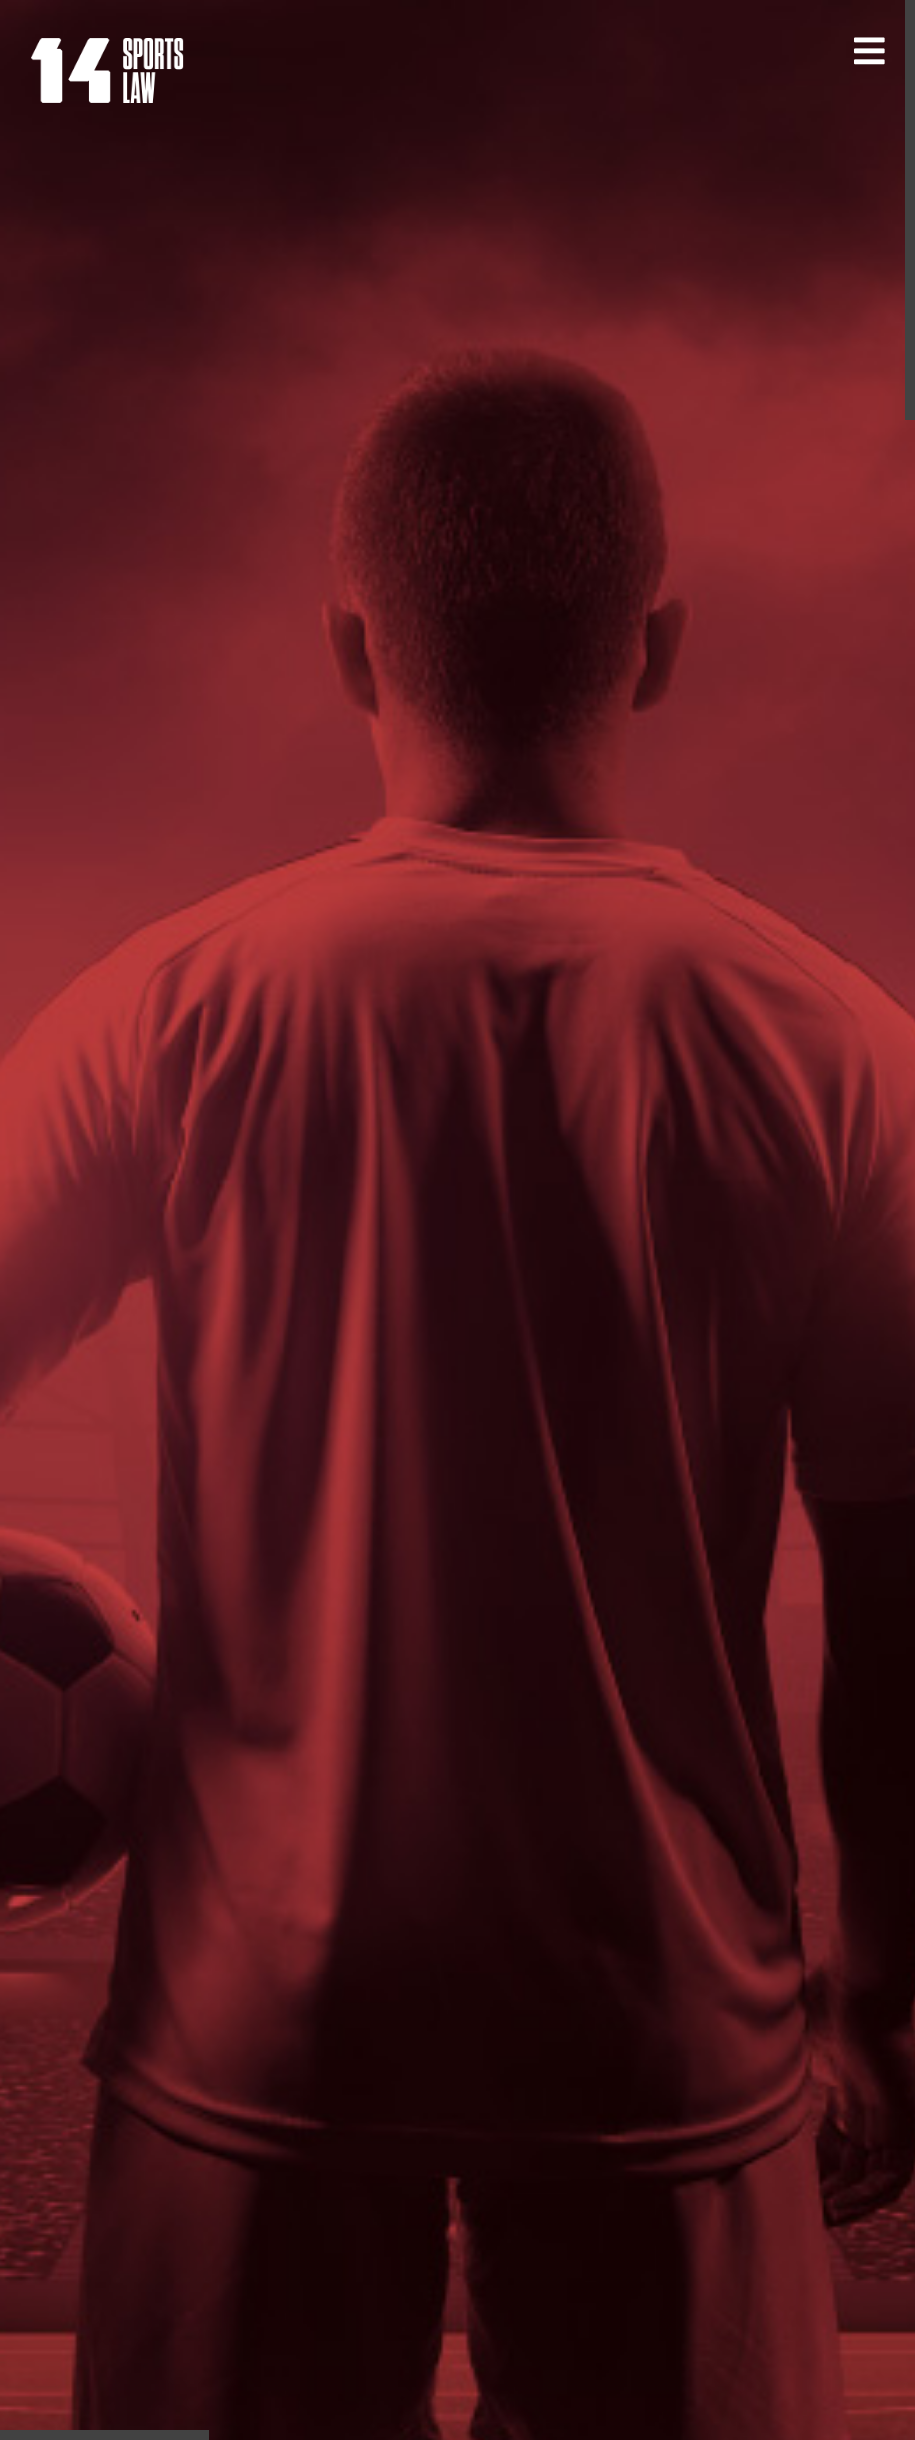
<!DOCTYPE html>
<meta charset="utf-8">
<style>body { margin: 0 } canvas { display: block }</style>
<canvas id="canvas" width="915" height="2440"></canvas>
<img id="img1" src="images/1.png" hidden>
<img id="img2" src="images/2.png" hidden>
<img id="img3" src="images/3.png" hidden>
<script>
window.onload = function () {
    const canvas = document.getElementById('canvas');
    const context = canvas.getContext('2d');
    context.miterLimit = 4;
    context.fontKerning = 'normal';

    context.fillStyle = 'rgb(255, 255, 255)';
    context.fillRect(0, 0, 915, 2440);
    context.drawImage(document.getElementById('img1'), 0, 0, 915, 2440);
    context.drawImage(document.getElementById('img2'), 31, 38, 153, 65);
    context.drawImage(document.getElementById('img3'), 854, 37, 31, 28);
    context.fillStyle = 'rgb(66, 66, 66)';
    context.fillRect(905, 0, 10, 420);
    context.fillRect(0, 2430, 209, 10);
};
</script>
